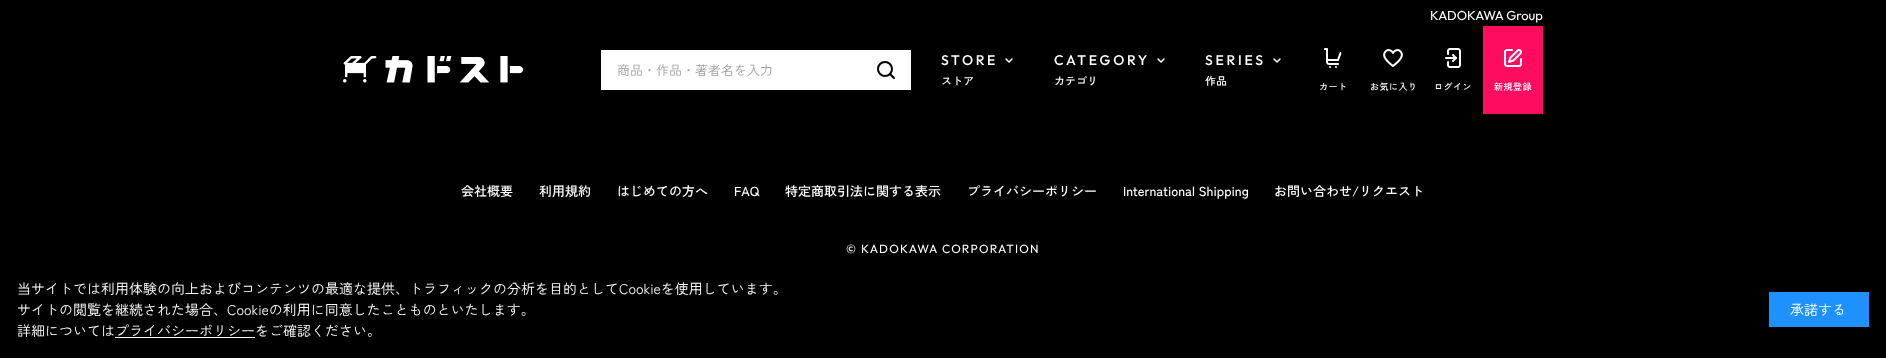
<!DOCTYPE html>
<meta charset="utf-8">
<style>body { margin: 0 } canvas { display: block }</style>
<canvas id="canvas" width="1886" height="358"></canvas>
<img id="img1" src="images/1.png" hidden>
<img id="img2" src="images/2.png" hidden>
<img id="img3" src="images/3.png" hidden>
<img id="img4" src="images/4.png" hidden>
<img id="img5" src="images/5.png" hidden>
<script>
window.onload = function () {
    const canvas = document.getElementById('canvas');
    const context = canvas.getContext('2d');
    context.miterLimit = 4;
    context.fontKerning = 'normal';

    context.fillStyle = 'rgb(0, 0, 0)';
    context.fillRect(0, 0, 1886, 358);
    context.drawImage(document.getElementById('img1'), 343, 56, 180, 27);
    context.fillStyle = 'rgb(255, 255, 255)';
    context.fillRect(601, 50, 310, 40);
    context.beginPath();
    context.arc(885, 69, 7, 0, 2 * Math.PI);
    context.strokeStyle = 'rgb(0, 0, 0)';
    context.lineWidth = 2;
    context.stroke();
    context.beginPath();
    context.moveTo(890, 74);
    context.lineTo(894, 78);
    context.lineCap = 'round';
    context.lineJoin = 'round';
    context.stroke();
    context.beginPath();
    context.moveTo(1006, 59);
    context.lineTo(1009, 62);
    context.lineTo(1012, 59);
    context.strokeStyle = 'rgb(254, 254, 254)';
    context.lineWidth = 1.5;
    context.stroke();
    context.beginPath();
    context.moveTo(1158, 59);
    context.lineTo(1161, 62);
    context.lineTo(1164, 59);
    context.stroke();
    context.beginPath();
    context.moveTo(1274, 59);
    context.lineTo(1277, 62);
    context.lineTo(1280, 59);
    context.stroke();
    context.drawImage(document.getElementById('img2'), 1324, 48, 18, 20);
    context.drawImage(document.getElementById('img3'), 1383, 49, 20, 18);
    context.drawImage(document.getElementById('img4'), 1445, 48, 16, 20);
    context.fillStyle = 'rgb(254, 12, 96)';
    context.fillRect(1483, 26, 60, 88);
    context.drawImage(document.getElementById('img5'), 1504, 49, 18, 18);
    context.fillStyle = 'rgb(255, 255, 255)';
    context.fillRect(115, 337, 140, 1);
    context.fillStyle = 'rgb(30, 144, 255)';
    context.fillRect(1769, 292, 100, 35);
    context.font = '13px Outfit';
    context.fillStyle = 'rgb(255, 255, 255)';
    context.fillText('KADOKAWA Group', 1430, 20);
    context.font = '13px Zen Kaku Gothic New';
    context.fillStyle = 'rgb(157, 157, 165)';
    context.fillText('商品・作品・著者名を入力', 617, 75);
    context.letterSpacing = '2.75px';
    context.font = '500 14px Outfit';
    context.fillStyle = 'rgb(255, 255, 255)';
    context.fillText('STORE', 941, 65);
    context.letterSpacing = '0px';
    context.font = '500 11px Zen Kaku Gothic New';
    context.fillText('ストア', 941, 85);
    context.letterSpacing = '2.75px';
    context.font = '500 14px Outfit';
    context.fillText('CATEGORY', 1054, 65);
    context.letterSpacing = '0px';
    context.font = '500 11px Zen Kaku Gothic New';
    context.fillText('カテゴリ', 1054, 85);
    context.letterSpacing = '2.75px';
    context.font = '500 14px Outfit';
    context.fillText('SERIES', 1205, 65);
    context.letterSpacing = '0px';
    context.font = '500 11px Zen Kaku Gothic New';
    context.fillText('作品', 1205, 85);
    context.letterSpacing = '0.5px';
    context.font = '500 9px Zen Kaku Gothic New';
    context.fillText('カート', 1319, 90);
    context.fillText('お気に入り', 1370, 90);
    context.fillText('ログイン', 1434, 90);
    context.fillText('新規登録', 1494, 90);
    context.letterSpacing = '0px';
    context.font = '500 13px Zen Kaku Gothic New';
    context.fillText('会社概要', 461, 196);
    context.fillText('利用規約', 539, 196);
    context.fillText('はじめての方へ', 617, 196);
    context.fillText('FAQ', 734, 196);
    context.fillText('特定商取引法に関する表示', 785, 196);
    context.fillText('プライバシーポリシー', 967, 196);
    context.fillText('International Shipping', 1123, 196);
    context.fillText('お問い合わせ/リクエスト', 1274, 196);
    context.letterSpacing = '1.2px';
    context.font = '12px Outfit';
    context.fillText('© KADOKAWA CORPORATION', 846, 253);
    context.letterSpacing = '0px';
    context.font = '14px Zen Kaku Gothic New';
    context.fillText('当サイトでは利用体験の向上およびコンテンツの最適な提供、トラフィックの分析を目的としてCookieを使用しています。', 17, 294);
    context.fillText('サイトの閲覧を継続された場合、Cookieの利用に同意したことものといたします。', 17, 315);
    context.fillText('詳細についてはプライバシーポリシーをご確認ください。', 17, 336);
    context.fillText('承諾する', 1790, 315);
};
</script>
